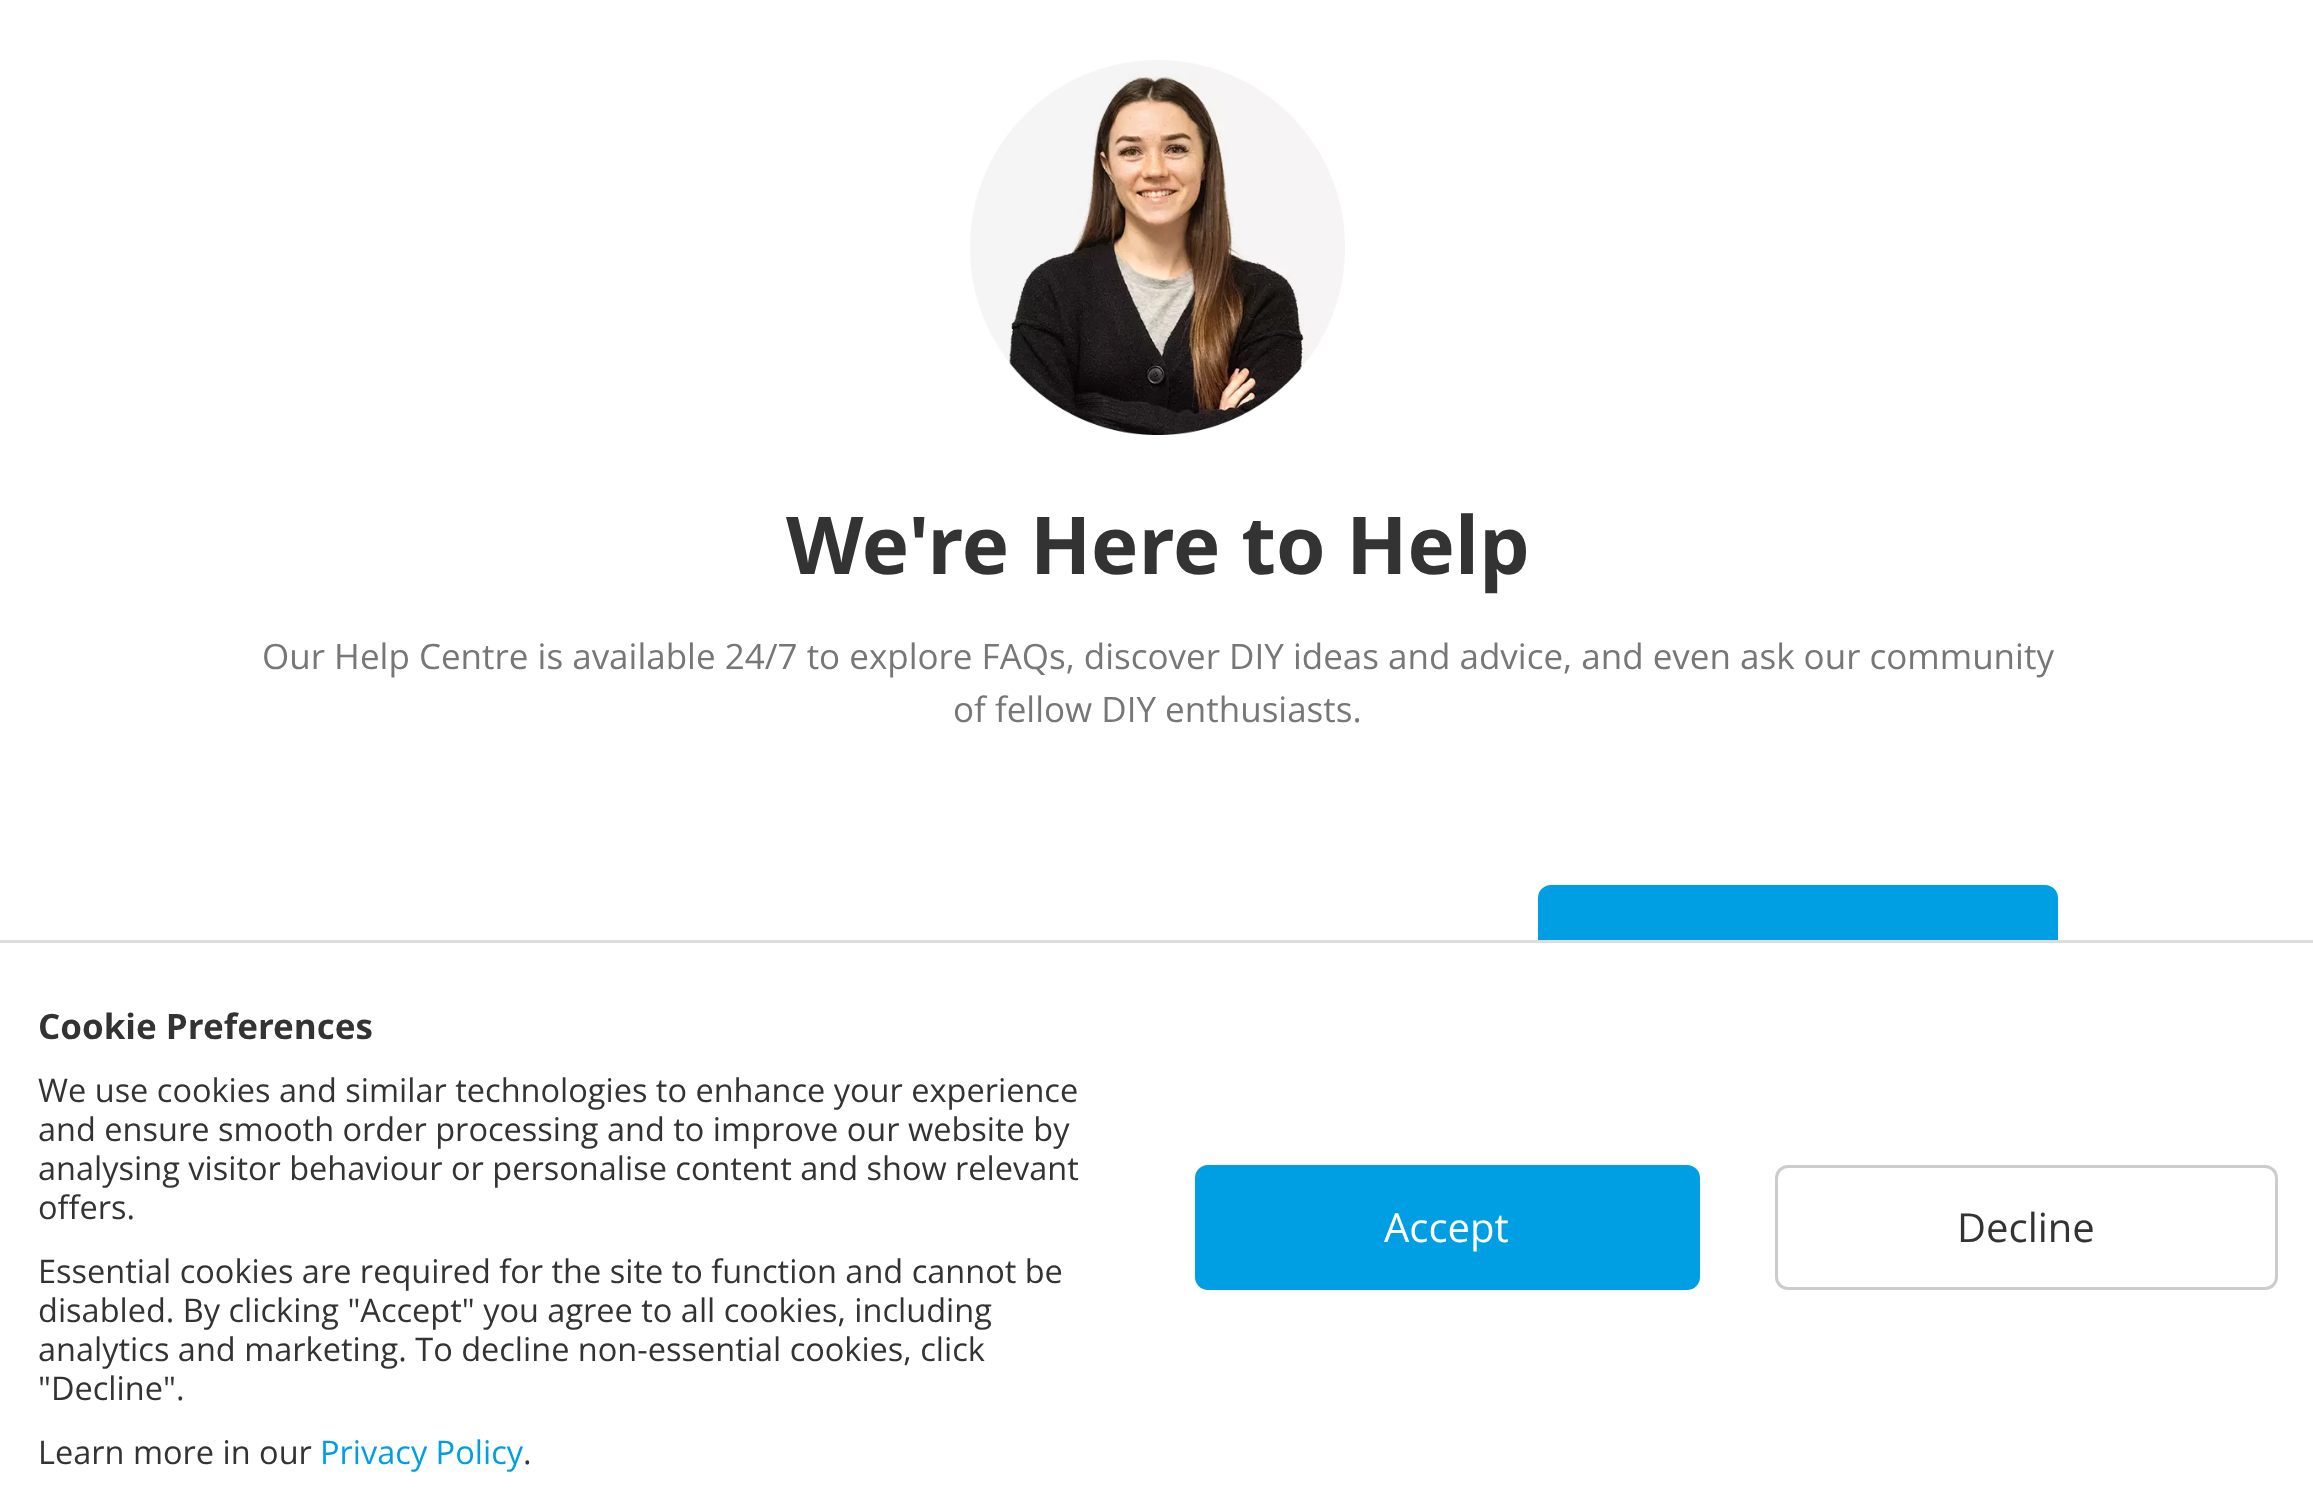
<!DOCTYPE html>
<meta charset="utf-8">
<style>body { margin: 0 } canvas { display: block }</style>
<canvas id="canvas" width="2313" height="1510"></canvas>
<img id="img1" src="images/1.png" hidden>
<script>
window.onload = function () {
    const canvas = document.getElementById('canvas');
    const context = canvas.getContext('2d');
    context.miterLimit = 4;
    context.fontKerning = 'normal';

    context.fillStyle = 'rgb(255, 255, 255)';
    context.fillRect(0, 0, 2313, 1510);
    context.drawImage(document.getElementById('img1'), 970, 60, 375, 375);
    context.fillStyle = 'rgb(0, 159, 227)';
    context.beginPath();
    context.roundRect(1539.5, 886.5, 517, 122, 11.5);
    context.fill();
    context.strokeStyle = 'rgb(0, 159, 227)';
    context.lineWidth = 3;
    context.stroke();
    context.fillStyle = 'rgb(255, 255, 255)';
    context.fillRect(1538, 943, 520, 67);
    context.fillStyle = 'rgb(221, 221, 221)';
    context.fillRect(0, 940, 2313, 3);
    context.fillStyle = 'rgb(0, 159, 227)';
    context.beginPath();
    context.roundRect(1196.5, 1166.5, 502, 122, 11.5);
    context.fill();
    context.stroke();
    context.beginPath();
    context.roundRect(1776.5, 1166.5, 500, 122, 11.5);
    context.strokeStyle = 'rgb(204, 204, 204)';
    context.stroke();
    context.font = 'bold 80px Open Sans';
    context.fillStyle = 'rgb(51, 51, 51)';
    context.fillText('We\'re Here to Help', 786, 574);
    context.font = '35px Open Sans';
    context.fillStyle = 'rgb(119, 119, 119)';
    context.fillText('Our Help Centre is available 24/7 to explore FAQs, discover DIY ideas and advice, and even ask our community', 262, 669);
    context.fillText('of fellow DIY enthusiasts.', 953, 722);
    context.font = 'bold 35px Open Sans';
    context.fillStyle = 'rgb(51, 51, 51)';
    context.fillText('Cookie Preferences', 38, 1039);
    context.font = '32.5px Open Sans';
    context.fillText('We use cookies and similar technologies to enhance your experience', 38, 1102);
    context.fillText('and ensure smooth order processing and to improve our website by', 38, 1141);
    context.fillText('analysing visitor behaviour or personalise content and show relevant', 38, 1180);
    context.fillText('offers.', 38, 1219);
    context.fillText('Essential cookies are required for the site to function and cannot be', 38, 1283);
    context.fillText('disabled. By clicking "Accept" you agree to all cookies, including', 38, 1322);
    context.fillText('analytics and marketing. To decline non-essential cookies, click', 38, 1361);
    context.fillText('"Decline".', 38, 1400);
    context.fillText('Learn more in our', 38, 1464);
    context.fillStyle = 'rgb(0, 159, 227)';
    context.fillText('Privacy Policy', 320, 1464);
    context.fillStyle = 'rgb(51, 51, 51)';
    context.fillText('.', 523, 1464);
    context.font = '40px Open Sans';
    context.fillStyle = 'rgb(255, 255, 255)';
    context.fillText('Accept', 1384, 1242);
    context.fillStyle = 'rgb(51, 51, 51)';
    context.fillText('Decline', 1957, 1242);
};
</script>
